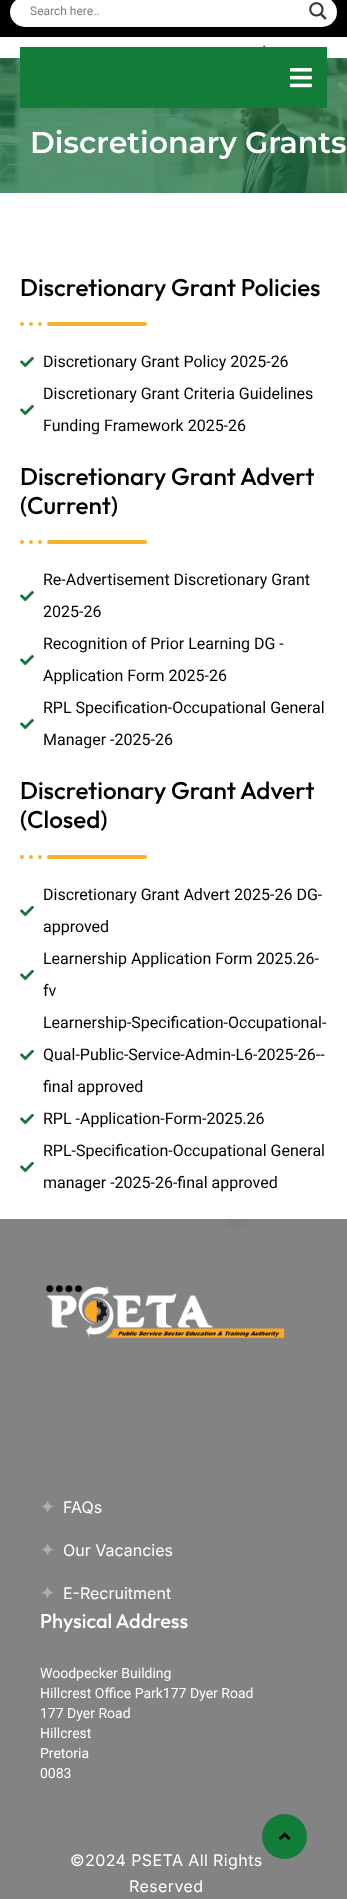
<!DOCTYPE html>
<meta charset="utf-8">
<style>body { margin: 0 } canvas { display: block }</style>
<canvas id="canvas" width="347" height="1899"></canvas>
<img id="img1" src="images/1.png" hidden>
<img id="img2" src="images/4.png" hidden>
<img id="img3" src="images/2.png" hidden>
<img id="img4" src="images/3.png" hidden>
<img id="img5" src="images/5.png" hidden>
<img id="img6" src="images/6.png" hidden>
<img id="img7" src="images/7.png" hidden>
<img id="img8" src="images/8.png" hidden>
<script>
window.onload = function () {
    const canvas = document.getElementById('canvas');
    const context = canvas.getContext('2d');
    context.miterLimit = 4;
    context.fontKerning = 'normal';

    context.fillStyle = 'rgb(255, 255, 255)';
    context.fillRect(0, 0, 347, 1899);
    context.fillStyle = 'rgb(0, 0, 0)';
    context.fillRect(0, 0, 347, 37);
    context.fillStyle = 'rgb(255, 255, 255)';
    context.beginPath();
    context.roundRect(10, -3, 327, 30, 15);
    context.fill();
    context.save();
    context.beginPath();
    context.rect(304, 0, 28, 25);
    context.clip();
    context.fillStyle = 'rgba(255, 255, 255, 0.64)';
    context.beginPath();
    context.moveTo(303, -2);
    context.lineTo(303, 26);
    context.lineTo(327, 26);
    context.lineTo(322, 27);
    context.lineTo(205, 27);
    context.lineTo(205, -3);
    context.lineTo(322, -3);
    context.lineTo(327, -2);
    context.closePath();
    context.moveTo(331, 24);
    context.bezierCurveTo(339, 18, 339, 6, 331, 0);
    context.closePath();
    context.fill('evenodd');
    context.restore();
    context.drawImage(document.getElementById('img1'), 309, 2, 18, 18);
    context.drawImage(document.getElementById('img2'), 0, 58, 347, 135);
    context.fillStyle = 'rgb(18, 125, 56)';
    context.fillRect(20, 47, 307, 61);
    context.beginPath();
    context.moveTo(270, 53);
    context.lineTo(260, 53);
    context.lineTo(264, 45);
    context.closePath();
    context.fill();
    context.drawImage(document.getElementById('img3'), 290, 68, 22, 20);
    context.fillStyle = 'rgb(132, 131, 131)';
    context.fillRect(0, 1219, 347, 680);
    context.fillStyle = 'rgb(18, 125, 56)';
    context.beginPath();
    context.arc(284.5, 1836.5, 22.5, 0, 2 * Math.PI);
    context.fill();
    context.drawImage(document.getElementById('img4'), 279, 1832, 12, 8);
    context.fillStyle = 'rgb(246, 178, 40)';
    context.beginPath();
    context.roundRect(47, 322, 100, 4, 2);
    context.fill();
    context.beginPath();
    context.arc(40, 324, 2, 0, 2 * Math.PI);
    context.fill();
    context.beginPath();
    context.arc(31, 324, 2, 0, 2 * Math.PI);
    context.fill();
    context.beginPath();
    context.arc(22, 324, 2, 0, 2 * Math.PI);
    context.fill();
    context.drawImage(document.getElementById('img5'), 20, 356, 14, 12);
    context.drawImage(document.getElementById('img5'), 20, 404, 14, 12);
    context.beginPath();
    context.roundRect(47, 540, 100, 4, 2);
    context.fill();
    context.beginPath();
    context.arc(40, 542, 2, 0, 2 * Math.PI);
    context.fill();
    context.beginPath();
    context.arc(31, 542, 2, 0, 2 * Math.PI);
    context.fill();
    context.beginPath();
    context.arc(22, 542, 2, 0, 2 * Math.PI);
    context.fill();
    context.drawImage(document.getElementById('img5'), 20, 590, 14, 12);
    context.drawImage(document.getElementById('img5'), 20, 654, 14, 12);
    context.drawImage(document.getElementById('img5'), 20, 718, 14, 12);
    context.beginPath();
    context.roundRect(47, 855, 100, 4, 2);
    context.fill();
    context.beginPath();
    context.arc(40, 857, 2, 0, 2 * Math.PI);
    context.fill();
    context.beginPath();
    context.arc(31, 857, 2, 0, 2 * Math.PI);
    context.fill();
    context.beginPath();
    context.arc(22, 857, 2, 0, 2 * Math.PI);
    context.fill();
    context.drawImage(document.getElementById('img5'), 20, 905, 14, 12);
    context.drawImage(document.getElementById('img5'), 20, 969, 14, 12);
    context.drawImage(document.getElementById('img5'), 20, 1049, 14, 12);
    context.drawImage(document.getElementById('img5'), 20, 1113, 14, 12);
    context.drawImage(document.getElementById('img5'), 20, 1161, 14, 12);
    context.drawImage(document.getElementById('img6'), 226, 1219, 25, 10);
    context.drawImage(document.getElementById('img7'), 46, 1284, 239, 55);
    context.drawImage(document.getElementById('img8'), 41, 1500, 13, 13);
    context.drawImage(document.getElementById('img8'), 41, 1543, 13, 13);
    context.drawImage(document.getElementById('img8'), 41, 1586, 13, 13);
    context.font = '12px Roboto';
    context.fillStyle = 'rgb(125, 125, 125)';
    context.fillText('Search here..', 30, 15);
    context.font = '600 30px Montserrat';
    context.fillStyle = 'rgb(255, 255, 255)';
    context.fillText('Discretionary Grants', 30, 153);
    context.font = '500 24.25px Outfit';
    context.fillStyle = 'rgb(0, 0, 0)';
    context.fillText('Discretionary Grant Policies', 20, 296);
    context.font = '16px Roboto';
    context.fillText('Discretionary Grant Policy 2025-26', 43, 367);
    context.fillText('Discretionary Grant Criteria Guidelines', 43, 399);
    context.fillText('Funding Framework 2025-26', 43, 431);
    context.font = '500 24.25px Outfit';
    context.fillText('Discretionary Grant Advert', 20, 485);
    context.fillText('(Current)', 20, 514);
    context.font = '16px Roboto';
    context.fillText('Re-Advertisement Discretionary Grant', 43, 585);
    context.fillText('2025-26', 43, 617);
    context.fillText('Recognition of Prior Learning DG -', 43, 649);
    context.fillText('Application Form 2025-26', 43, 681);
    context.fillText('RPL Specification-Occupational General', 43, 713);
    context.fillText('Manager -2025-26', 43, 745);
    context.font = '500 24.25px Outfit';
    context.fillText('Discretionary Grant Advert', 20, 799);
    context.fillText('(Closed)', 20, 828);
    context.font = '16px Roboto';
    context.fillText('Discretionary Grant Advert 2025-26 DG-', 43, 900);
    context.fillText('approved', 43, 932);
    context.fillText('Learnership Application Form 2025.26-', 43, 964);
    context.fillText('fv', 43, 996);
    context.fillText('Learnership-Specification-Occupational-', 43, 1028);
    context.fillText('Qual-Public-Service-Admin-L6-2025-26--', 43, 1060);
    context.fillText('final approved', 43, 1092);
    context.fillText('RPL -Application-Form-2025.26', 43, 1124);
    context.fillText('RPL-Specification-Occupational General', 43, 1156);
    context.fillText('manager -2025-26-final approved', 43, 1188);
    context.font = '16px Inter';
    context.fillStyle = 'rgb(255, 255, 255)';
    context.fillText('FAQs', 63, 1513);
    context.fillText('Our Vacancies', 63, 1556);
    context.fillText('E-Recruitment', 63, 1599);
    context.font = '500 20px Outfit';
    context.fillText('Physical Address', 40, 1628);
    context.font = '14px Roboto';
    context.fillText('Woodpecker Building', 40, 1678);
    context.fillText('Hillcrest Office Park177 Dyer Road', 40, 1698);
    context.fillText('177 Dyer Road', 40, 1718);
    context.fillText('Hillcrest', 40, 1738);
    context.fillText('Pretoria', 40, 1758);
    context.fillText('0083', 40, 1778);
    context.letterSpacing = '0.4px';
    context.font = '16px Inter';
    context.fillText('©2024 PSETA All Rights', 70, 1866);
    context.fillText('Reserved', 129, 1892);
};
</script>
